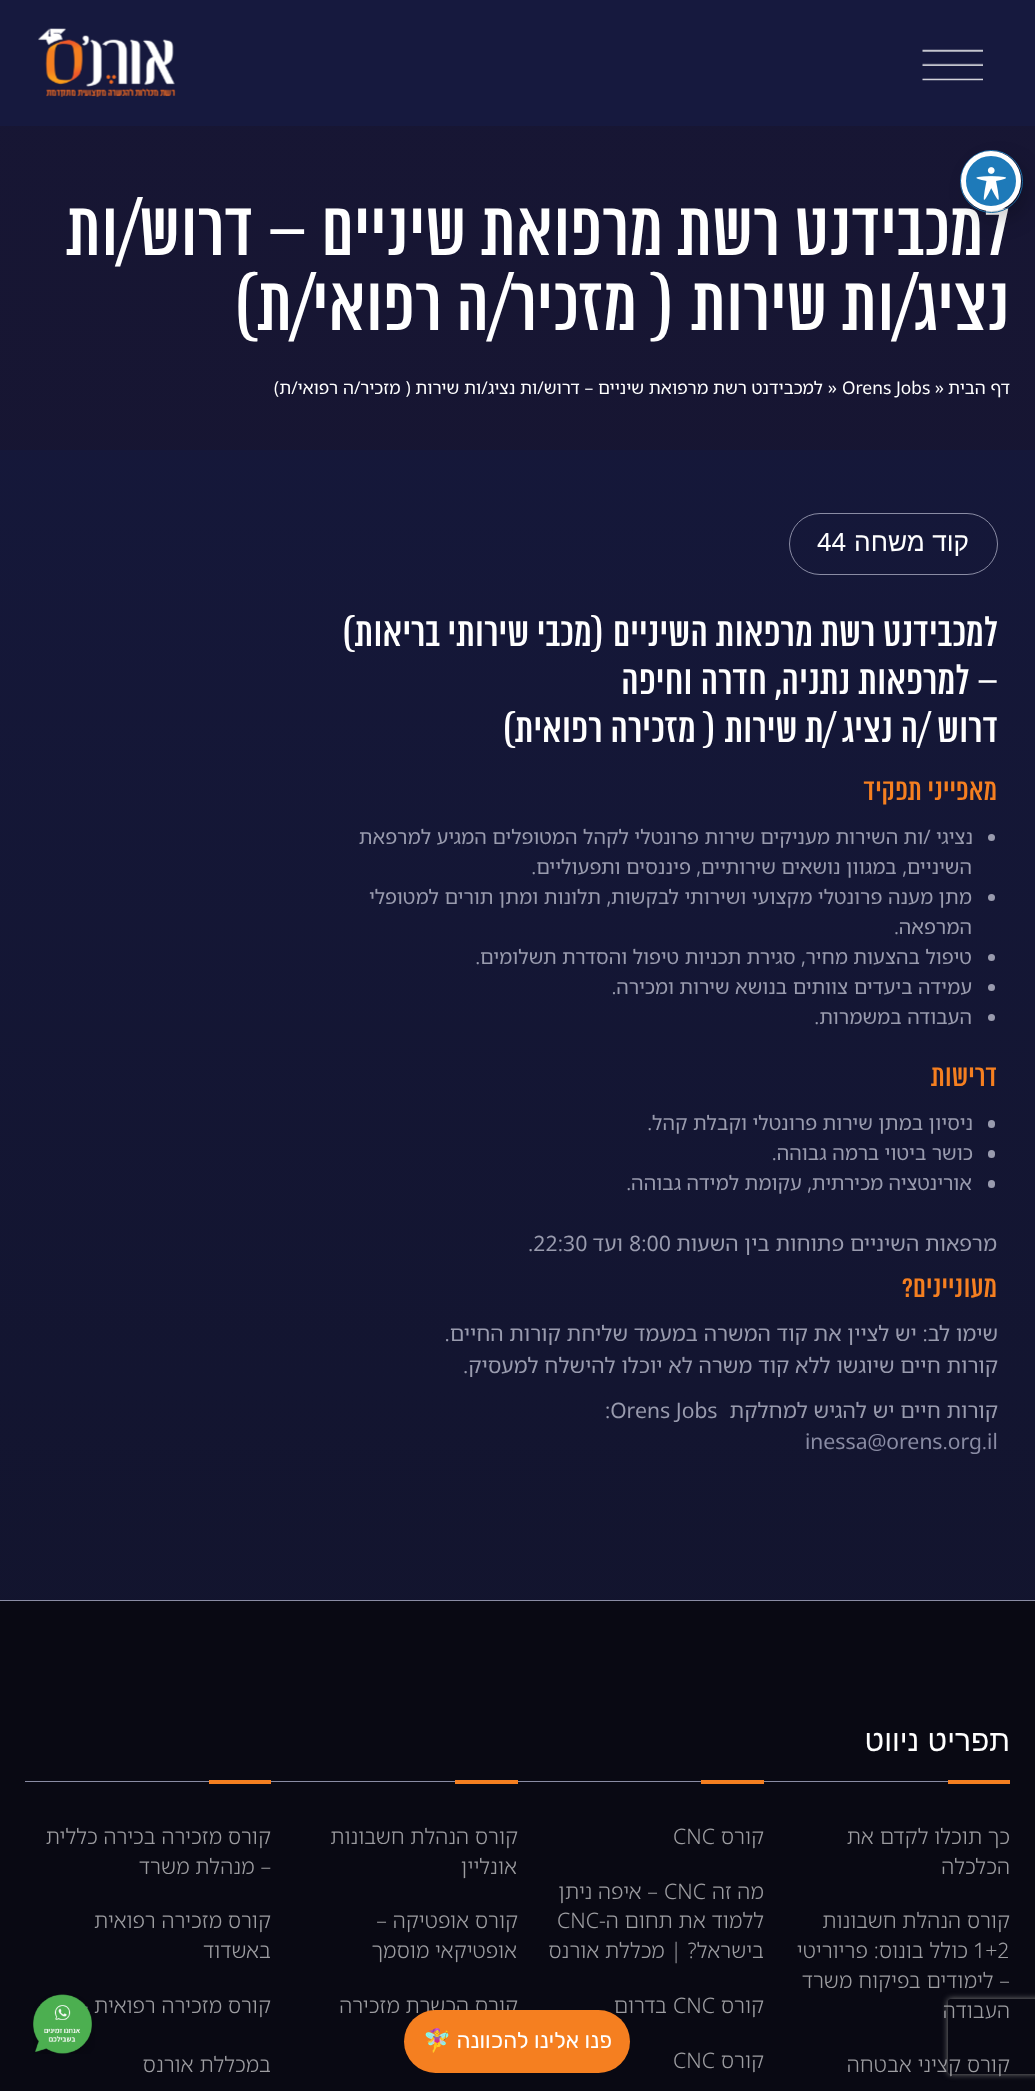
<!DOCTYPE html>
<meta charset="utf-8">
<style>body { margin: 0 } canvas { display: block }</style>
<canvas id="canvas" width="1035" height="2091"></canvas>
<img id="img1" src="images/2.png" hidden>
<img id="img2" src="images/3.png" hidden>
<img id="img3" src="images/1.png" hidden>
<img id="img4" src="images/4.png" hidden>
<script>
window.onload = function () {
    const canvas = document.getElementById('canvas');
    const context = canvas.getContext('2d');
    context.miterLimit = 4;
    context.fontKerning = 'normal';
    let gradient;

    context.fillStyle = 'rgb(255, 255, 255)';
    context.fillRect(0, 0, 1035, 2091);
    gradient = context.createLinearGradient(517, 0, 518, 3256);
    gradient.addColorStop(0, 'rgb(22, 25, 62)');
    gradient.addColorStop(0.85, 'rgb(16, 17, 35)');
    context.fillStyle = gradient;
    context.fillRect(0, 450, 1035, 1150);
    gradient = context.createLinearGradient(517, 0, 518, 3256);
    gradient.addColorStop(0, 'rgb(23, 22, 52)');
    gradient.addColorStop(0.85, 'rgb(21, 19, 42)');
    context.fillStyle = gradient;
    context.fillRect(0, 126, 1035, 324);
    context.fillStyle = 'rgb(22, 25, 62)';
    context.fillRect(0, 0, 1035, 126);
    context.drawImage(document.getElementById('img1'), 922, 49, 61, 32);
    context.drawImage(document.getElementById('img2'), 38, 28, 138, 69);
    context.beginPath();
    context.roundRect(789.5, 513.5, 208, 61, 30.5);
    context.strokeStyle = 'rgb(138, 140, 164)';
    context.stroke();
    context.fillStyle = 'rgb(153, 155, 174)';
    context.beginPath();
    context.arc(991.5, 837.5, 3.5, 0, 2 * Math.PI);
    context.fill();
    context.beginPath();
    context.arc(991.5, 897.5, 3.5, 0, 2 * Math.PI);
    context.fill();
    context.beginPath();
    context.arc(991.5, 957.5, 3.5, 0, 2 * Math.PI);
    context.fill();
    context.beginPath();
    context.arc(991.5, 987.5, 3.5, 0, 2 * Math.PI);
    context.fill();
    context.beginPath();
    context.arc(991.5, 1017.5, 3.5, 0, 2 * Math.PI);
    context.fill();
    context.beginPath();
    context.roundRect(988, 1120, 7, 8, 3.5);
    context.fill();
    context.beginPath();
    context.roundRect(988, 1150, 7, 8, 3.5);
    context.fill();
    context.beginPath();
    context.roundRect(988, 1180, 7, 8, 3.5);
    context.fill();
    context.fillStyle = 'rgb(9, 9, 19)';
    context.fillRect(0, 1601, 1035, 490);
    context.fillStyle = 'rgb(138, 140, 164)';
    context.fillRect(0, 1600, 1035, 1);
    context.fillRect(764, 1781, 184, 1);
    context.fillStyle = 'rgb(245, 127, 32)';
    context.fillRect(948, 1780, 62, 4);
    context.fillStyle = 'rgb(138, 140, 164)';
    context.fillRect(518, 1781, 183, 1);
    context.fillStyle = 'rgb(245, 127, 32)';
    context.fillRect(701, 1780, 63, 4);
    context.fillStyle = 'rgb(138, 140, 164)';
    context.fillRect(271, 1781, 184, 1);
    context.fillStyle = 'rgb(245, 127, 32)';
    context.fillRect(455, 1780, 63, 4);
    context.fillStyle = 'rgb(138, 140, 164)';
    context.fillRect(25, 1781, 184, 1);
    context.fillStyle = 'rgb(245, 127, 32)';
    context.fillRect(209, 1780, 62, 4);
    context.save();
    context.beginPath();
    context.moveTo(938, 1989);
    context.lineTo(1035, 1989);
    context.lineTo(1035, 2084);
    context.lineTo(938, 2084);
    context.closePath();
    context.moveTo(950.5, 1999);
    context.lineTo(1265.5, 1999);
    context.bezierCurveTo(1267, 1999, 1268, 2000, 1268, 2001.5);
    context.lineTo(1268, 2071.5);
    context.bezierCurveTo(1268, 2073, 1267, 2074, 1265.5, 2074);
    context.lineTo(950.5, 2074);
    context.bezierCurveTo(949, 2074, 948, 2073, 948, 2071.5);
    context.lineTo(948, 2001.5);
    context.bezierCurveTo(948, 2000, 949, 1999, 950.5, 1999);
    context.closePath();
    context.clip('evenodd');
    context.fillStyle = 'rgb(128, 128, 128)';
    context.filter = 'blur(3px)';
    context.beginPath();
    context.roundRect(948, 1999, 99, 75, 2.5);
    context.fill();
    context.filter = 'none';
    context.restore();
    context.direction = 'rtl';
    context.font = '75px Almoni';
    context.fillStyle = 'rgb(255, 255, 255)';
    context.fillText('למכבידנט רשת מרפואת שיניים – דרוש/ות', 1010, 255);
    context.beginPath();
    context.arc(991.5, 181.5, 31, 0, 2 * Math.PI);
    context.strokeStyle = 'rgb(30, 122, 185)';
    context.stroke();
    context.fillStyle = 'rgba(0, 0, 0, 0.2)';
    context.filter = 'blur(10px)';
    context.beginPath();
    context.roundRect(969, 161, 60, 60, 30);
    context.fill();
    context.filter = 'none';
    context.fillStyle = 'rgb(30, 122, 185)';
    context.beginPath();
    context.arc(991, 181, 27.5, 0, 2 * Math.PI);
    context.fill();
    context.strokeStyle = 'rgb(255, 255, 255)';
    context.lineWidth = 5;
    context.stroke();
    context.drawImage(document.getElementById('img3'), 976, 167, 30, 33);
    context.fillStyle = 'rgb(255, 255, 255)';
    context.fillText('נציג/ות שירות ( מזכיר/ה רפואי/ת)', 1010, 330);
    context.font = '17.5px Noto Sans Hebrew';
    context.fillText('דף הבית', 1010, 394);
    context.direction = 'ltr';
    context.fillText('»', 935, 394);
    context.fillText('Orens Jobs', 842, 394);
    context.fillText('»', 828, 394);
    context.direction = 'rtl';
    context.fillText('למכבידנט רשת מרפואת שיניים – דרוש/ות נציג/ות שירות ( מזכיר/ה רפואי/ת)', 823, 394);
    context.font = '26.25px Liberation Sans';
    context.fillText('קוד משחה', 969, 551);
    context.direction = 'ltr';
    context.fillText('44', 817, 551);
    context.direction = 'rtl';
    context.font = '40px Almoni';
    context.fillText('למכבידנט רשת מרפאות השיניים (מכבי שירותי בריאות)', 998, 646);
    context.fillText('– למרפאות נתניה, חדרה וחיפה', 998, 694);
    context.fillText('דרוש /ה נציג /ת שירות ( מזכירה רפואית)', 998, 742);
    context.font = '30px Almoni';
    context.fillStyle = 'rgb(245, 127, 32)';
    context.fillText('מאפייני תפקיד', 997, 800);
    context.font = '20px Noto Sans Hebrew';
    context.fillStyle = 'rgb(153, 155, 174)';
    context.fillText('נציגי /ות השירות מעניקים שירות פרונטלי לקהל המטופלים המגיע למרפאת', 973, 844);
    context.fillText('השיניים, במגוון נושאים שירותיים, פיננסים ותפעוליים.', 972, 874);
    context.fillText('מתן מענה פרונטלי מקצועי ושירותי לבקשות, תלונות ומתן תורים למטופלי', 972, 904);
    context.fillText('המרפאה.', 972, 934);
    context.fillText('טיפול בהצעות מחיר, סגירת תכניות טיפול והסדרת תשלומים.', 972, 964);
    context.fillText('עמידה ביעדים צוותים בנושא שירות ומכירה.', 972, 994);
    context.fillText('העבודה במשמרות.', 972, 1024);
    context.font = '30px Almoni';
    context.fillStyle = 'rgb(245, 127, 32)';
    context.fillText('דרישות', 997, 1086);
    context.font = '20px Noto Sans Hebrew';
    context.fillStyle = 'rgb(153, 155, 174)';
    context.fillText('ניסיון במתן שירות פרונטלי וקבלת קהל.', 973, 1130);
    context.fillText('כושר ביטוי ברמה גבוהה.', 973, 1160);
    context.fillText('אורינטציה מכירתית, עקומת למידה גבוהה.', 972, 1190);
    context.font = '21.25px Noto Sans Hebrew';
    context.fillText('מרפאות השיניים פתוחות בין השעות', 997, 1251);
    context.direction = 'ltr';
    context.fillText('8:00', 629, 1251);
    context.direction = 'rtl';
    context.fillText('ועד', 623, 1251);
    context.direction = 'ltr';
    context.fillText('.22:30', 528, 1251);
    context.direction = 'rtl';
    context.font = '30px Almoni';
    context.fillStyle = 'rgb(245, 127, 32)';
    context.fillText('מעוניינים?', 997, 1297);
    context.font = '21.25px Noto Sans Hebrew';
    context.fillStyle = 'rgb(153, 155, 174)';
    context.fillText('שימו לב: יש לציין את קוד המשרה במעמד שליחת קורות החיים.', 998, 1341);
    context.fillText('קורות חיים שיוגשו ללא קוד משרה לא יוכלו להישלח למעסיק.', 998, 1373);
    context.fillText('קורות חיים יש להגיש למחלקת', 998, 1418);
    context.direction = 'ltr';
    context.fillText(':Orens Jobs', 605, 1418);
    context.fillStyle = 'rgb(138, 140, 164)';
    context.fillText('inessa@orens.org.il', 805, 1449);
    context.direction = 'rtl';
    context.font = '30px Liberation Sans';
    context.fillStyle = 'rgb(255, 255, 255)';
    context.fillText('תפריט ניווט', 1010, 1751);
    context.font = '300 21.25px Noto Sans Hebrew';
    context.fillStyle = 'rgb(157, 157, 161)';
    context.fillText('כך תוכלו לקדם את', 1010, 1844);
    context.fillText('הכלכלה', 1010, 1874);
    context.fillText('קורס הנהלת חשבונות', 1010, 1928);
    context.direction = 'ltr';
    context.fillText('1+2', 973, 1958);
    context.direction = 'rtl';
    context.fillText('כולל בונוס: פריוריטי', 968, 1958);
    context.fillText('– לימודים בפיקוח משרד', 1010, 1988);
    context.fillText('העבודה', 1010, 2018);
    context.fillText('קורס קציני אבטחה', 1010, 2072);
    context.fillText('קורס', 764, 1844);
    context.direction = 'ltr';
    context.fillText('CNC', 673, 1844);
    context.direction = 'rtl';
    context.fillText('מה זה', 764, 1899);
    context.direction = 'ltr';
    context.fillText('CNC', 664, 1899);
    context.direction = 'rtl';
    context.fillText('– איפה ניתן', 658, 1899);
    context.fillText('ללמוד את תחום ה-', 764, 1928);
    context.direction = 'ltr';
    context.fillText('CNC', 557, 1928);
    context.direction = 'rtl';
    context.fillText('בישראל? | מכללת אורנס', 764, 1958);
    context.fillText('קורס', 764, 2013);
    context.direction = 'ltr';
    context.fillText('CNC', 673, 2013);
    context.direction = 'rtl';
    context.fillText('בדרום', 667, 2013);
    context.fillText('קורס', 764, 2068);
    context.direction = 'ltr';
    context.fillText('CNC', 673, 2068);
    context.direction = 'rtl';
    context.fillText('קורס הנהלת חשבונות', 518, 1844);
    context.fillText('אונליין', 517, 1874);
    context.fillText('קורס אופטיקה –', 518, 1928);
    context.fillText('אופטיקאי מוסמך', 517, 1958);
    context.fillText('קורס הכשרת מזכירה', 518, 2013);
    context.fillText('קורס מזכירה בכירה כללית', 271, 1844);
    context.fillText('– מנהלת משרד', 271, 1874);
    context.fillText('קורס מזכירה רפואית', 271, 1928);
    context.fillText('באשדוד', 271, 1958);
    context.fillText('קורס מזכירה רפואית –', 271, 2013);
    context.fillText('במכללת אורנס', 271, 2072);
    context.drawImage(document.getElementById('img4'), 33, 1994, 62, 60);
    context.fillStyle = 'rgb(245, 127, 32)';
    context.beginPath();
    context.roundRect(404, 2010, 226, 63, 31.5);
    context.fill();
    context.font = '22.5px Rubik';
    context.fillStyle = 'rgb(255, 255, 255)';
    context.fillText('פנו אלינו להכוונה', 612, 2048);
    context.font = '22.5px Noto Color Emoji';
    context.fillText('🧚‍♀️', 451, 2048);
};
</script>
